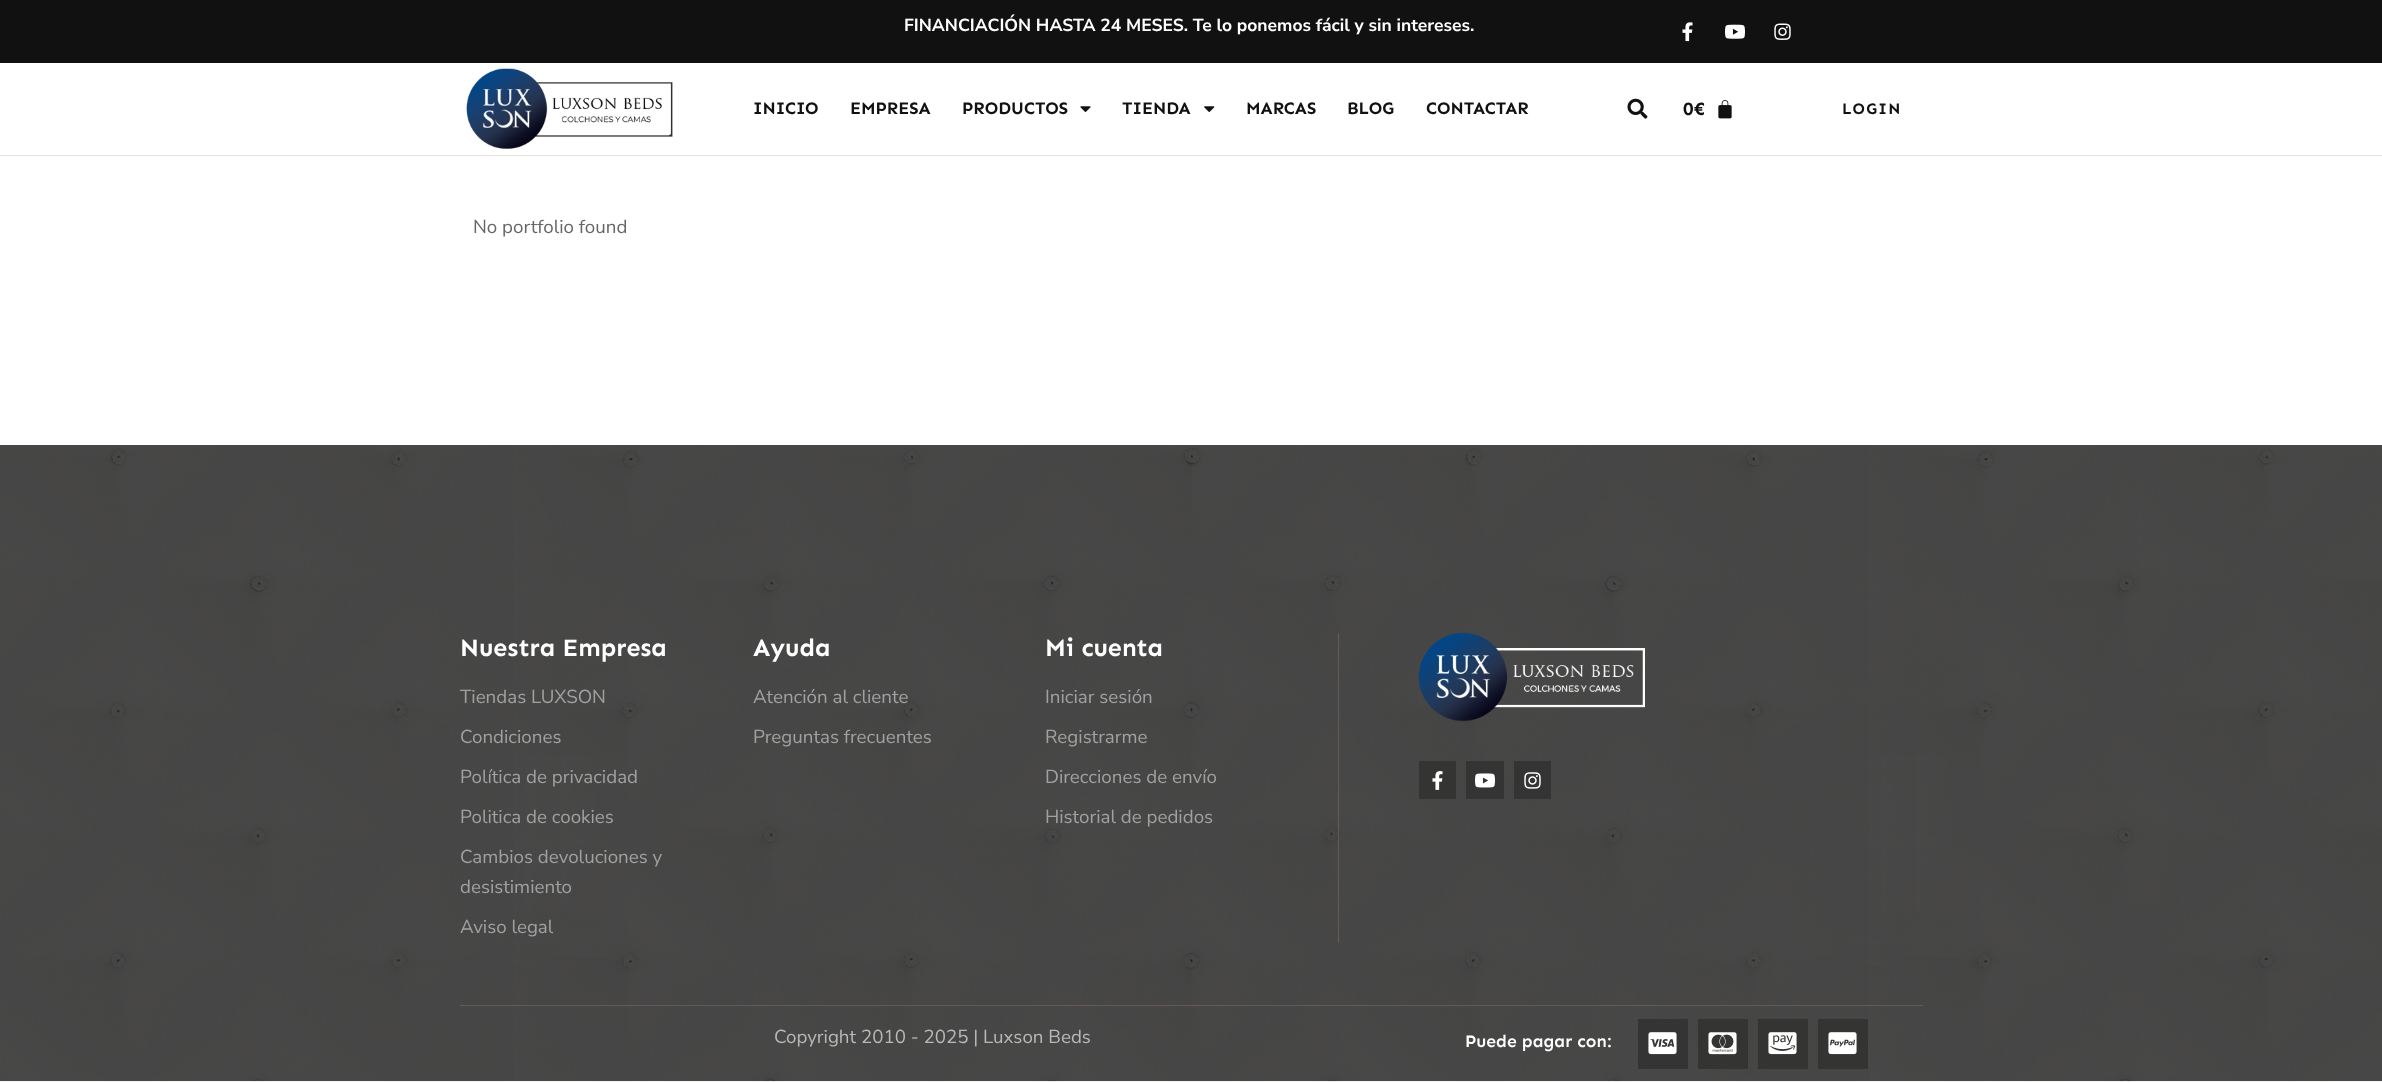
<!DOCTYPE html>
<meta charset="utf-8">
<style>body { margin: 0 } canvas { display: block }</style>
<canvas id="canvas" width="2382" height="1083"></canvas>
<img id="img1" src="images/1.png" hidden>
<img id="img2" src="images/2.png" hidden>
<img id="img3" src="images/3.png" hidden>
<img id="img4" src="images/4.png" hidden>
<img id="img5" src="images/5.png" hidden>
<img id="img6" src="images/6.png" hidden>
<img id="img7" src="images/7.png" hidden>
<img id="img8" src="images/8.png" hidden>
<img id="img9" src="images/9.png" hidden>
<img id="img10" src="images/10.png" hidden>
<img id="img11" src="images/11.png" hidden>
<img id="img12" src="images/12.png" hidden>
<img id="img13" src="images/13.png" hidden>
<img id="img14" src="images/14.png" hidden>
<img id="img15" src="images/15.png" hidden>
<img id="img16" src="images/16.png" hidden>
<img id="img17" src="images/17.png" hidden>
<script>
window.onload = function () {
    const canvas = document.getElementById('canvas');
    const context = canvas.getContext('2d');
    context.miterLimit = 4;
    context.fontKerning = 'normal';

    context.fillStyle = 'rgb(255, 255, 255)';
    context.fillRect(0, 0, 2382, 1083);
    context.fillStyle = 'rgb(17, 17, 17)';
    context.fillRect(0, 0, 2382, 63);
    context.drawImage(document.getElementById('img1'), 1682, 22, 11, 20);
    context.drawImage(document.getElementById('img2'), 1725, 24, 20, 15);
    context.drawImage(document.getElementById('img3'), 1774, 23, 17, 17);
    context.fillStyle = 'rgb(230, 226, 224)';
    context.fillRect(0, 155, 2382, 1);
    context.drawImage(document.getElementById('img4'), 466, 68, 207, 81);
    context.drawImage(document.getElementById('img5'), 1080, 106, 11, 6);
    context.drawImage(document.getElementById('img6'), 1204, 106, 11, 6);
    context.drawImage(document.getElementById('img7'), 1627, 98, 21, 21);
    context.drawImage(document.getElementById('img8'), 1718, 100, 14, 19);
    context.drawImage(document.getElementById('img9'), 0, 445, 2382, 637);
    context.fillStyle = 'rgba(130, 111, 102, 0.5)';
    context.fillRect(460, 1005, 1463, 1);
    context.fillRect(1338, 633, 1, 310);
    context.drawImage(document.getElementById('img10'), 1418, 632, 227, 90);
    context.fillStyle = 'rgb(52, 52, 51)';
    context.fillRect(1419, 761, 37, 38);
    context.drawImage(document.getElementById('img11'), 1432, 771, 11, 19);
    context.fillStyle = 'rgb(52, 52, 52)';
    context.fillRect(1466, 761, 38, 38);
    context.drawImage(document.getElementById('img12'), 1475, 773, 20, 15);
    context.fillStyle = 'rgb(53, 52, 52)';
    context.fillRect(1514, 761, 37, 38);
    context.drawImage(document.getElementById('img13'), 1524, 772, 17, 17);
    context.fillRect(1638, 1019, 50, 50);
    context.drawImage(document.getElementById('img14'), 1648, 1032, 29, 23);
    context.fillStyle = 'rgb(52, 52, 51)';
    context.fillRect(1698, 1019, 50, 50);
    context.drawImage(document.getElementById('img15'), 1708, 1032, 29, 23);
    context.fillRect(1758, 1019, 50, 50);
    context.drawImage(document.getElementById('img16'), 1768, 1032, 29, 23);
    context.fillRect(1818, 1019, 50, 50);
    context.drawImage(document.getElementById('img17'), 1828, 1032, 29, 23);
    context.font = 'bold 17.5px Nunito Sans';
    context.fillStyle = 'rgb(255, 255, 255)';
    context.fillText('FINANCIACIÓN HASTA 24 MESES. Te lo ponemos fácil y sin intereses.', 904, 31);
    context.font = 'bold 17.5px Sen';
    context.fillStyle = 'rgb(17, 17, 17)';
    context.fillText('INICIO', 753, 114);
    context.fillText('EMPRESA', 850, 114);
    context.fillText('PRODUCTOS', 962, 114);
    context.fillText('TIENDA', 1122, 114);
    context.fillText('MARCAS', 1246, 114);
    context.fillText('BLOG', 1347, 114);
    context.fillText('CONTACTAR', 1426, 114);
    context.font = 'bold 18.75px Sen';
    context.fillText('0€', 1683, 115);
    context.letterSpacing = '1.25px';
    context.font = 'bold 16px Sen';
    context.fillText('LOGIN', 1842, 114);
    context.letterSpacing = '0px';
    context.font = '18.75px Nunito Sans';
    context.fillStyle = 'rgb(102, 102, 102)';
    context.fillText('No portfolio found', 473, 233);
    context.font = 'bold 25px Sen';
    context.fillStyle = 'rgb(255, 255, 255)';
    context.fillText('Nuestra Empresa', 460, 656);
    context.font = '18.75px Nunito Sans';
    context.fillStyle = 'rgb(161, 161, 161)';
    context.fillText('Tiendas LUXSON', 460, 703);
    context.fillText('Condiciones', 460, 743);
    context.fillText('Política de privacidad', 460, 783);
    context.fillText('Politica de cookies', 460, 823);
    context.fillText('Cambios devoluciones y', 460, 863);
    context.fillText('desistimiento', 460, 893);
    context.fillText('Aviso legal', 460, 933);
    context.font = 'bold 25px Sen';
    context.fillStyle = 'rgb(255, 255, 255)';
    context.fillText('Ayuda', 753, 656);
    context.font = '18.75px Nunito Sans';
    context.fillStyle = 'rgb(161, 161, 161)';
    context.fillText('Atención al cliente', 753, 703);
    context.fillText('Preguntas frecuentes', 753, 743);
    context.font = 'bold 25px Sen';
    context.fillStyle = 'rgb(255, 255, 255)';
    context.fillText('Mi cuenta', 1045, 656);
    context.font = '18.75px Nunito Sans';
    context.fillStyle = 'rgb(161, 161, 161)';
    context.fillText('Iniciar sesión', 1045, 703);
    context.fillText('Registrarme', 1045, 743);
    context.fillText('Direcciones de envío', 1045, 783);
    context.fillText('Historial de pedidos', 1045, 823);
    context.fillStyle = 'rgb(184, 184, 184)';
    context.fillText('Copyright 2010 - 2025 | Luxson Beds', 774, 1043);
    context.font = '600 17.5px Sen';
    context.fillStyle = 'rgb(255, 255, 255)';
    context.fillText('Puede pagar con:', 1465, 1047);
};
</script>
